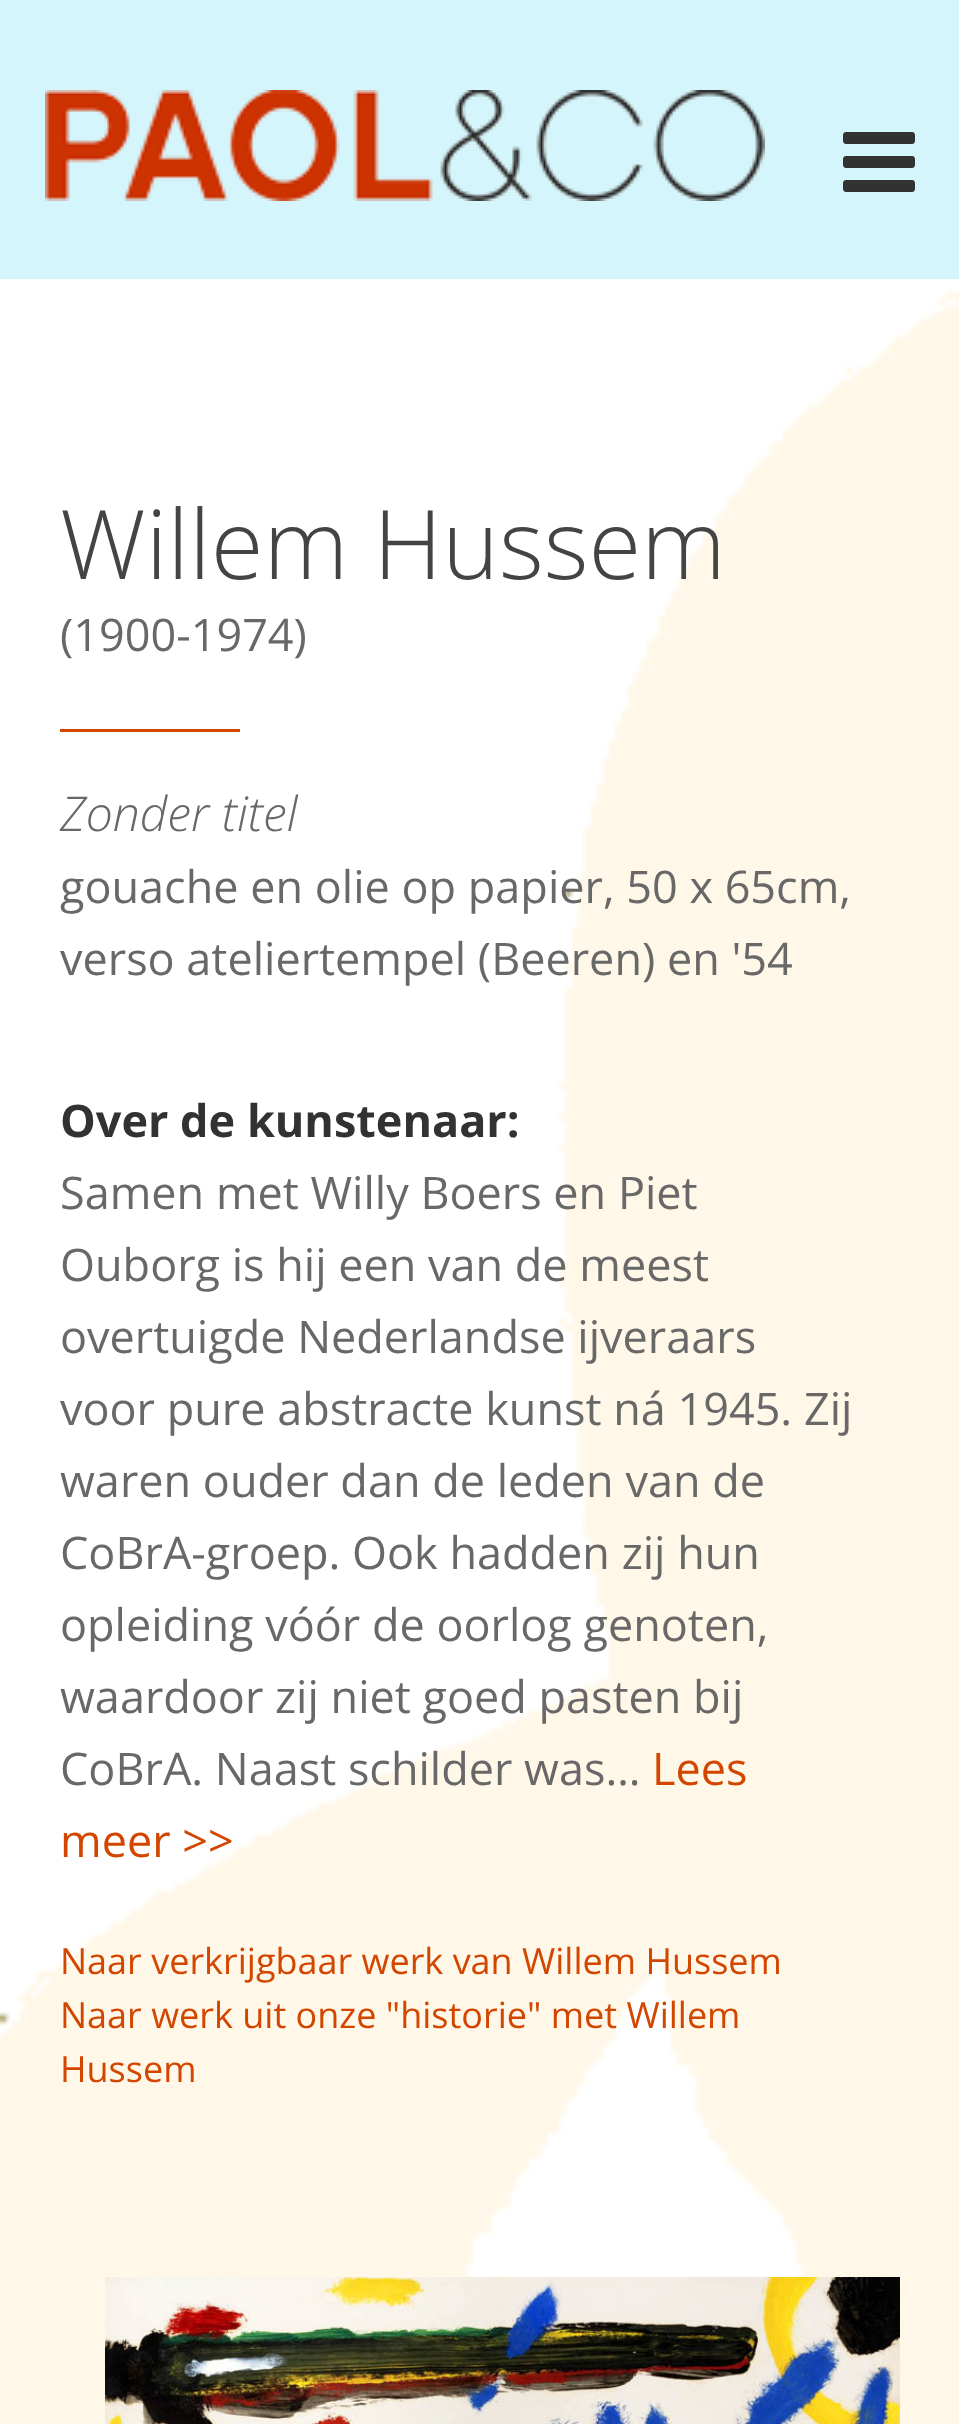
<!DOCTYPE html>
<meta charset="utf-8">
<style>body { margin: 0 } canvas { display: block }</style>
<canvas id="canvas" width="959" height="2424"></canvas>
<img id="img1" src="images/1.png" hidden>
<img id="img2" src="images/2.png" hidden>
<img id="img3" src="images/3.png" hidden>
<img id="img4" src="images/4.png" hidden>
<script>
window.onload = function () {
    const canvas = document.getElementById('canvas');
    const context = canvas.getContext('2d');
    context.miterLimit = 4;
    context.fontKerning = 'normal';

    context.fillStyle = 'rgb(255, 255, 255)';
    context.fillRect(0, 0, 959, 2424);
    context.fillStyle = 'rgb(213, 245, 252)';
    context.fillRect(0, 0, 959, 279);
    context.drawImage(document.getElementById('img1'), 45, 90, 720, 111);
    context.drawImage(document.getElementById('img2'), 843, 132, 72, 60);
    context.drawImage(document.getElementById('img3'), 0, 290, 959, 2134);
    context.fillStyle = 'rgb(211, 70, 0)';
    context.fillRect(60, 729, 180, 3);
    context.drawImage(document.getElementById('img4'), 105, 2277, 795, 147);
    context.font = '300 96px Open Sans';
    context.fillStyle = 'rgb(68, 68, 68)';
    context.fillText('Willem Hussem', 60, 579);
    context.font = '45px Open Sans';
    context.fillStyle = 'rgb(104, 104, 104)';
    context.fillText('(1900-1974)', 60, 651);
    context.font = 'italic 300 48px Open Sans';
    context.fillText('Zonder titel', 60, 831);
    context.font = '45px Open Sans';
    context.fillText('gouache en olie op papier, 50 x 65cm,', 60, 903);
    context.fillText('verso ateliertempel (Beeren) en \'54', 60, 975);
    context.font = 'bold 45px Open Sans';
    context.fillStyle = 'rgb(50, 50, 50)';
    context.fillText('Over de kunstenaar:', 60, 1137);
    context.font = '45px Open Sans';
    context.fillStyle = 'rgb(104, 104, 104)';
    context.fillText('Samen met Willy Boers en Piet', 60, 1209);
    context.fillText('Ouborg is hij een van de meest', 60, 1281);
    context.fillText('overtuigde Nederlandse ijveraars', 60, 1353);
    context.fillText('voor pure abstracte kunst ná 1945. Zij', 60, 1425);
    context.fillText('waren ouder dan de leden van de', 60, 1497);
    context.fillText('CoBrA-groep. Ook hadden zij hun', 60, 1569);
    context.fillText('opleiding vóór de oorlog genoten,', 60, 1641);
    context.fillText('waardoor zij niet goed pasten bij', 60, 1713);
    context.fillText('CoBrA. Naast schilder was…', 60, 1785);
    context.fillStyle = 'rgb(211, 70, 0)';
    context.fillText('Lees', 652, 1785);
    context.fillText('meer >>', 60, 1857);
    context.font = '36px Open Sans';
    context.fillText('Naar verkrijgbaar werk van Willem Hussem', 60, 1974);
    context.fillText('Naar werk uit onze "historie" met Willem', 60, 2028);
    context.fillText('Hussem', 60, 2082);
};
</script>
